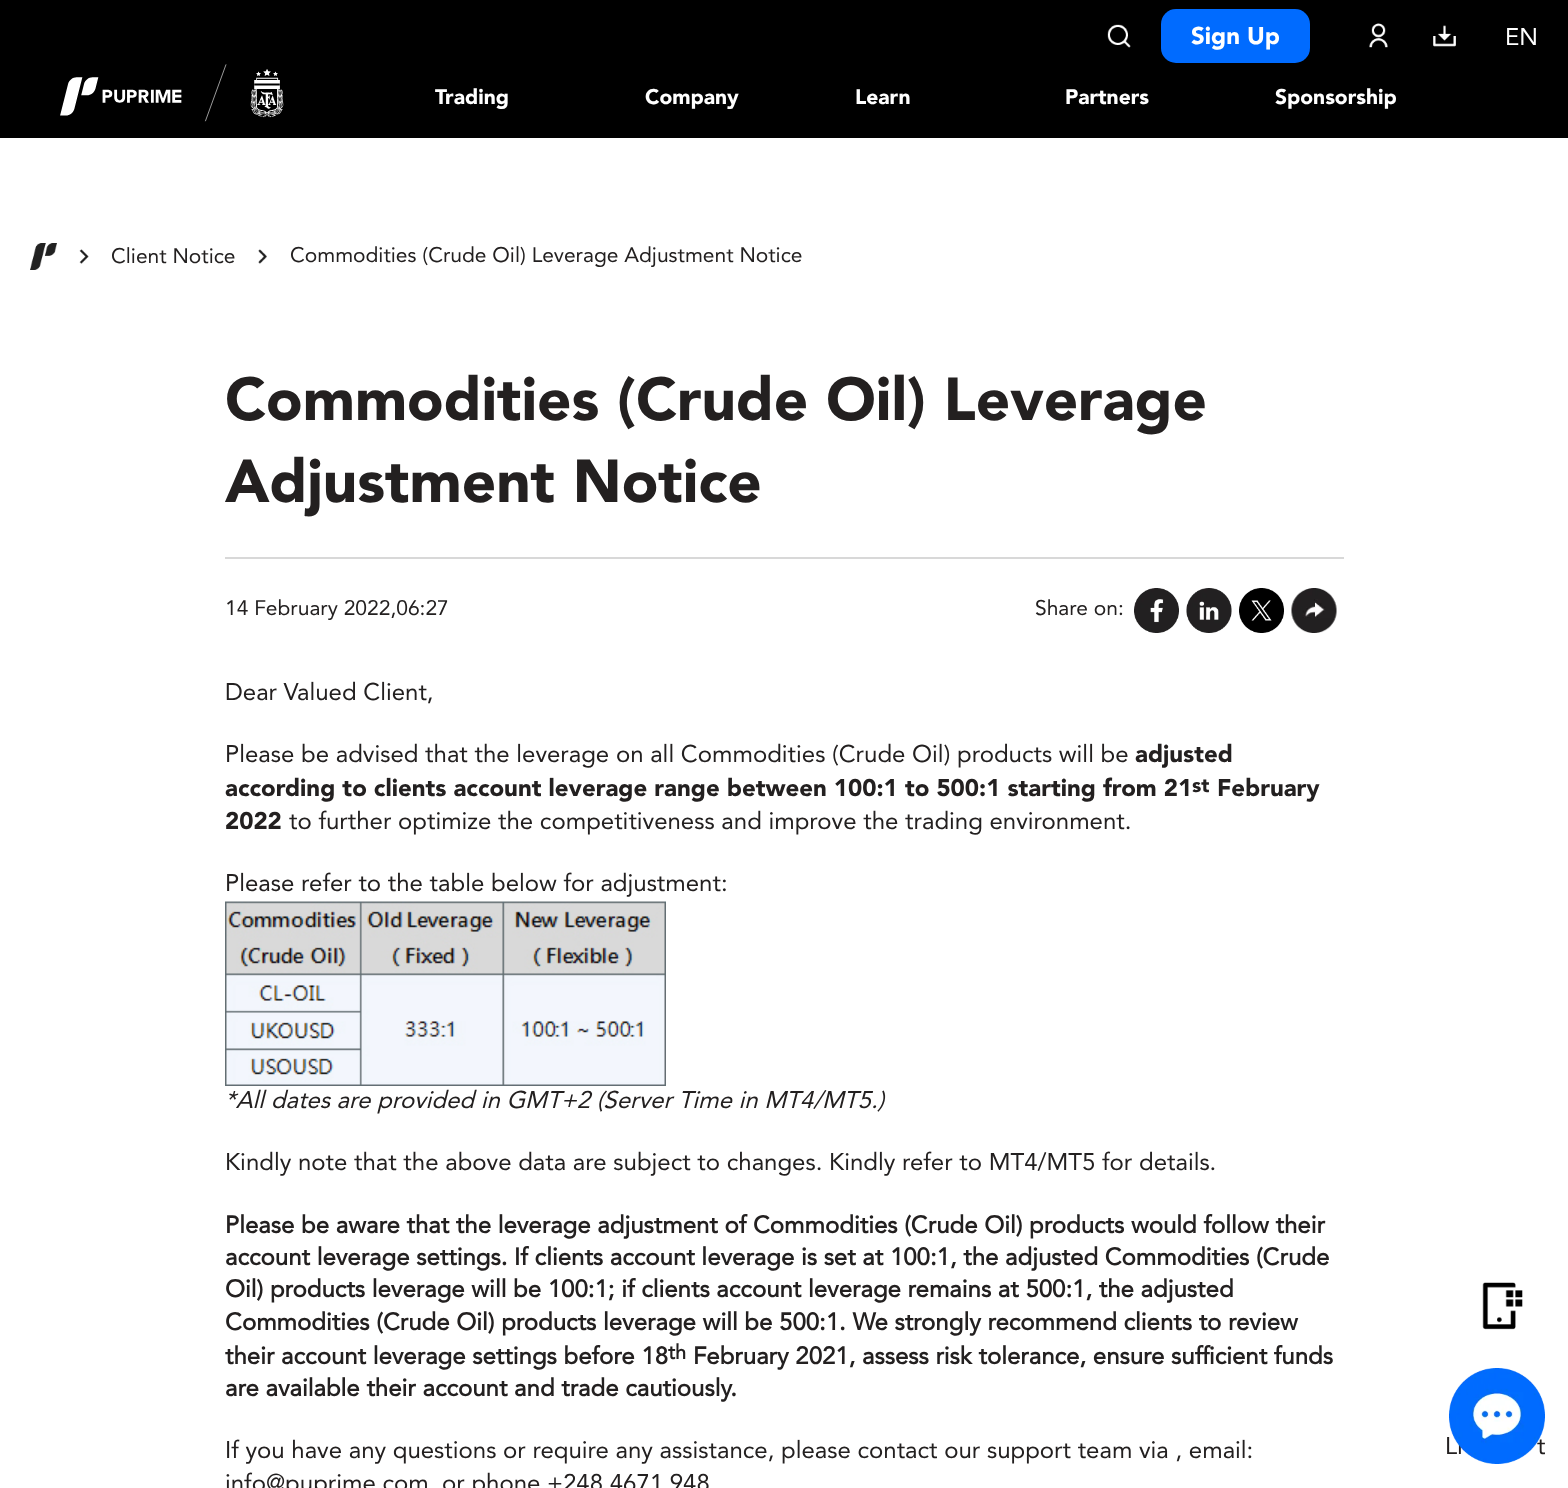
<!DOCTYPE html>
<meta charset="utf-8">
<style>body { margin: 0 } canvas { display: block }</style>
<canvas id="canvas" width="1568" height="1488"></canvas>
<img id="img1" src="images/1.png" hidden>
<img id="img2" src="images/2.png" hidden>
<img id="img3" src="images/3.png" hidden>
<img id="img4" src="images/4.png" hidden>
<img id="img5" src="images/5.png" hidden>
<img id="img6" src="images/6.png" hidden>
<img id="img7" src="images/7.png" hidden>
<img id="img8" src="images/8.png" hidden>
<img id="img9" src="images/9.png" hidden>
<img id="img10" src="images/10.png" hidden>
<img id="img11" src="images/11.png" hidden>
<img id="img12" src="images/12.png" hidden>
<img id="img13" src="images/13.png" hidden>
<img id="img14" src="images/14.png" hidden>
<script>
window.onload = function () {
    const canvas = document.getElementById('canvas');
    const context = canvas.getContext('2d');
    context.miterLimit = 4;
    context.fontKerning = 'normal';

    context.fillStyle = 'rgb(255, 255, 255)';
    context.fillRect(0, 0, 1568, 1488);
    context.fillStyle = 'rgb(0, 0, 0)';
    context.fillRect(0, 0, 1568, 138);
    context.drawImage(document.getElementById('img1'), 60, 64, 224, 58);
    context.drawImage(document.getElementById('img2'), 1107, 24, 24, 24);
    context.fillStyle = 'rgb(0, 107, 255)';
    context.beginPath();
    context.roundRect(1161, 9, 149, 54, 15);
    context.fill();
    context.drawImage(document.getElementById('img3'), 1369, 23, 19, 25);
    context.drawImage(document.getElementById('img4'), 1433, 25, 23, 22);
    context.drawImage(document.getElementById('img5'), 30, 243, 27, 27);
    context.drawImage(document.getElementById('img6'), 79, 249, 10, 15);
    context.drawImage(document.getElementById('img7'), 258, 249, 9, 15);
    context.fillStyle = 'rgb(216, 216, 216)';
    context.fillRect(225, 557, 1119, 2);
    context.drawImage(document.getElementById('img8'), 1134, 588, 45, 45);
    context.drawImage(document.getElementById('img9'), 1186, 588, 46, 45);
    context.drawImage(document.getElementById('img10'), 1239, 588, 45, 45);
    context.drawImage(document.getElementById('img11'), 1291, 588, 46, 45);
    context.drawImage(document.getElementById('img12'), 225, 901, 441, 185);
    context.drawImage(document.getElementById('img13'), 1482, 1282, 41, 48);
    context.font = '900 24px Avenir';
    context.fillStyle = 'rgb(255, 255, 255)';
    context.fillText('Sign Up', 1191, 44);
    context.font = '24px Avenir';
    context.fillText('EN', 1505, 45);
    context.font = '900 21px Avenir';
    context.fillText('Trading', 435, 104);
    context.fillText('Company', 645, 104);
    context.fillText('Learn', 855, 104);
    context.fillText('Partners', 1065, 104);
    context.fillText('Sponsorship', 1275, 104);
    context.font = '21px Avenir';
    context.fillStyle = 'rgb(35, 32, 32)';
    context.fillText('Client Notice', 111, 263);
    context.fillText('Commodities (Crude Oil) Leverage Adjustment Notice', 290, 262);
    context.font = '900 60px Avenir';
    context.fillText('Commodities (Crude Oil) Leverage', 225, 420);
    context.fillText('Adjustment Notice', 225, 502);
    context.font = '21px Avenir';
    context.fillText('14 February 2022,06:27', 225, 615);
    context.fillText('Share on:', 1035, 615);
    context.font = '24px Avenir';
    context.fillText('Dear Valued Client,', 225, 700);
    context.fillText('Please be advised that the leverage on all Commodities (Crude Oil) products will be', 225, 762);
    context.font = '900 24px Avenir';
    context.fillText('adjusted', 1135, 762);
    context.fillText('according to clients account leverage range between 100:1 to 500:1 starting from 21', 225, 796);
    context.font = '900 20px Avenir';
    context.fillText('st', 1192, 792);
    context.font = '900 24px Avenir';
    context.fillText('February', 1217, 796);
    context.fillText('2022', 225, 829);
    context.font = '24px Avenir';
    context.fillText('to further optimize the competitiveness and improve the trading environment.', 289, 829);
    context.fillText('Please refer to the table below for adjustment:', 225, 891);
    context.font = 'italic 24px Avenir';
    context.fillText('*All dates are provided in GMT+2 (Server Time in MT4/MT5.)', 225, 1108);
    context.font = '24px Avenir';
    context.fillText('Kindly note that the above data are subject to changes. Kindly refer to MT4/MT5 for details.', 225, 1170);
    context.font = 'bold 24px Avenir';
    context.fillText('Please be aware that the leverage adjustment of Commodities (Crude Oil) products would follow their', 225, 1233);
    context.fillText('account leverage settings. If clients account leverage is set at 100:1, the adjusted Commodities (Crude', 225, 1265);
    context.fillText('Oil) products leverage will be 100:1; if clients account leverage remains at 500:1, the adjusted', 225, 1297);
    context.fillText('Commodities (Crude Oil) products leverage will be 500:1. We strongly recommend clients to review', 225, 1330);
    context.fillText('their account leverage settings before 18', 225, 1364);
    context.font = 'bold 20px Avenir';
    context.fillText('th', 668, 1359);
    context.font = 'bold 24px Avenir';
    context.fillText('February 2021, assess risk tolerance, ensure sufficient funds', 693, 1364);
    context.fillText('are available their account and trade cautiously.', 225, 1396);
    context.font = '24px Avenir';
    context.fillText('If you have any questions or require any assistance, please contact our support team via , email:', 225, 1458);
    context.fillText('Li', 1445, 1454);
    context.fillText('t', 1537, 1454);
    context.fillText('info@puprime.com', 225, 1491);
    context.fillText('or phone +248 4671 948', 442, 1491);
    context.drawImage(document.getElementById('img14'), 1449, 1368, 96, 96);
};
</script>
